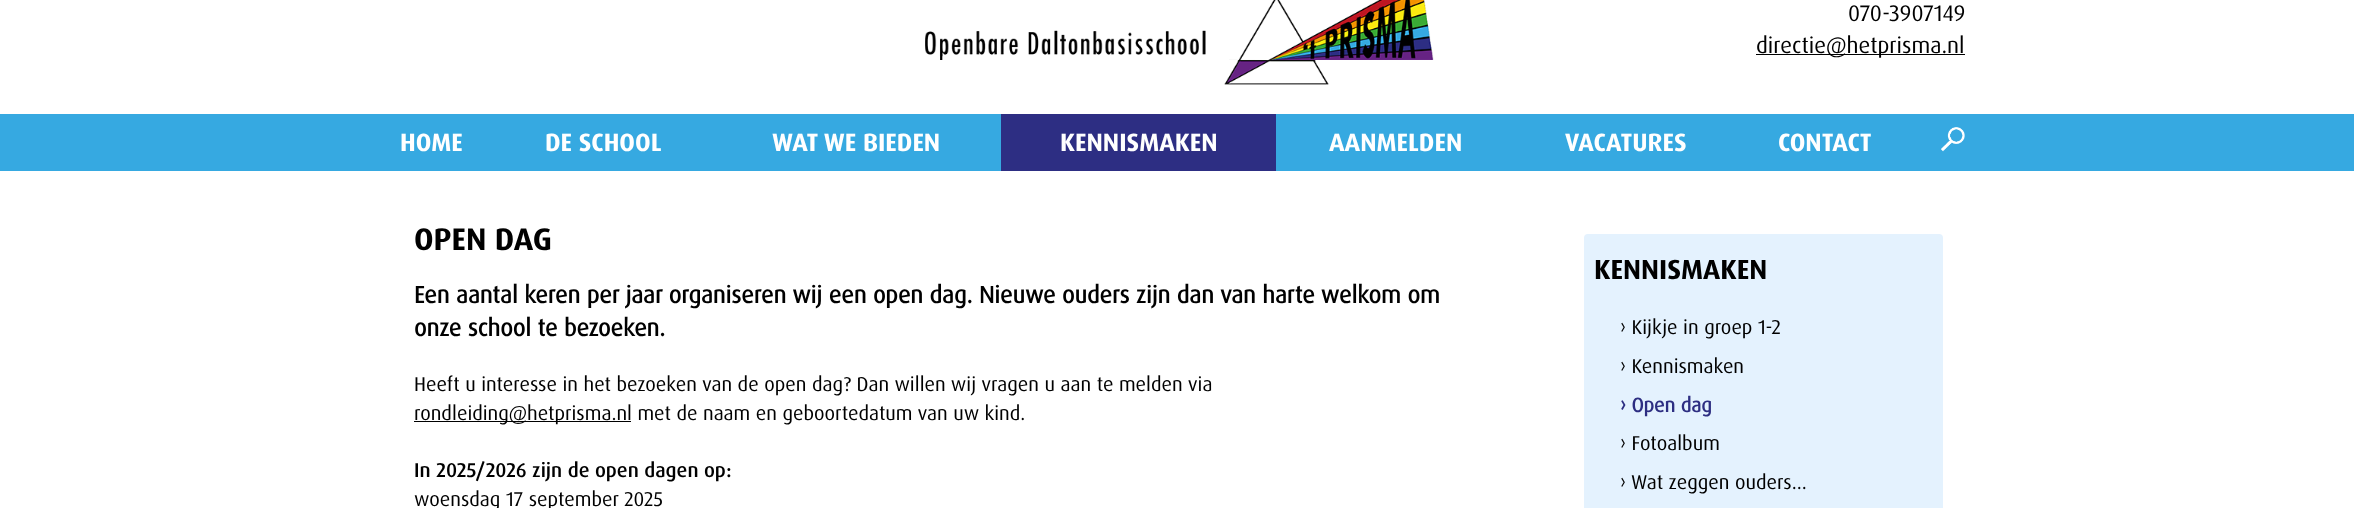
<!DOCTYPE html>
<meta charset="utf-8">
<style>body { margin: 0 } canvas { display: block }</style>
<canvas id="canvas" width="2354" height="508"></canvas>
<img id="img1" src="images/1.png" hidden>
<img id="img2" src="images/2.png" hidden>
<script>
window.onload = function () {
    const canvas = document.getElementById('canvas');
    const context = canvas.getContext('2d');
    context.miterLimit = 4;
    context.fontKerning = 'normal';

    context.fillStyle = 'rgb(255, 255, 255)';
    context.fillRect(0, 0, 2354, 508);
    context.drawImage(document.getElementById('img1'), 925, 0, 509, 85);
    context.fillStyle = 'rgb(0, 0, 0)';
    context.fillRect(1756, 54, 209, 1);
    context.fillStyle = 'rgb(54, 169, 225)';
    context.fillRect(0, 114, 2354, 57);
    context.fillStyle = 'rgb(45, 46, 131)';
    context.fillRect(1001, 114, 275, 57);
    context.drawImage(document.getElementById('img2'), 1941, 127, 24, 25);
    context.fillStyle = 'rgb(0, 0, 0)';
    context.fillRect(414, 421, 217, 1);
    context.fillStyle = 'rgb(228, 242, 254)';
    context.beginPath();
    context.roundRect(1584, 234, 359, 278, 4);
    context.fill();
    context.font = '22.5px "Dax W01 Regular"';
    context.fillStyle = 'rgb(0, 0, 0)';
    context.fillText('070-3907149', 1848, 21);
    context.fillText('directie@hetprisma.nl', 1756, 53);
    context.font = 'bold 25px "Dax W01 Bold"';
    context.fillStyle = 'rgb(255, 255, 255)';
    context.fillText('HOME', 400, 151);
    context.fillText('DE SCHOOL', 545, 151);
    context.fillText('WAT WE BIEDEN', 772, 151);
    context.fillText('KENNISMAKEN', 1060, 151);
    context.fillText('AANMELDEN', 1329, 151);
    context.fillText('VACATURES', 1565, 151);
    context.fillText('CONTACT', 1778, 151);
    context.font = 'bold 31.25px "Dax W01 Bold"';
    context.fillStyle = 'rgb(0, 0, 0)';
    context.fillText('OPEN DAG', 414, 250);
    context.font = 'bold 23.75px "Dax W01 Regular"';
    context.fillText('Een aantal keren per jaar organiseren wij een open dag. Nieuwe ouders zijn dan van harte welkom om', 414, 303);
    context.fillText('onze school te bezoeken.', 414, 336);
    context.font = '20px "Dax W01 Regular"';
    context.fillText('Heeft u interesse in het bezoeken van de open dag? Dan willen wij vragen u aan te melden via', 414, 391);
    context.fillText('rondleiding@hetprisma.nl met de naam en geboortedatum van uw kind.', 414, 420);
    context.font = '500 20px "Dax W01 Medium"';
    context.fillText('In 2025/2026 zijn de open dagen op:', 414, 477);
    context.font = '20px "Dax W01 Regular"';
    context.fillText('woensdag 17 september 2025', 414, 506);
    context.font = 'bold 27.5px "Dax W01 Bold"';
    context.fillText('KENNISMAKEN', 1594, 279);
    context.font = '20px "Dax W01 Regular"';
    context.fillText('› Kijkje in groep 1-2', 1620, 334);
    context.fillText('› Kennismaken', 1620, 373);
    context.font = 'bold 20px "Dax W01 Regular"';
    context.fillStyle = 'rgb(45, 46, 130)';
    context.fillText('› Open dag', 1620, 412);
    context.font = '20px "Dax W01 Regular"';
    context.fillStyle = 'rgb(0, 0, 0)';
    context.fillText('› Fotoalbum', 1620, 450);
    context.fillText('› Wat zeggen ouders...', 1620, 489);
};
</script>
